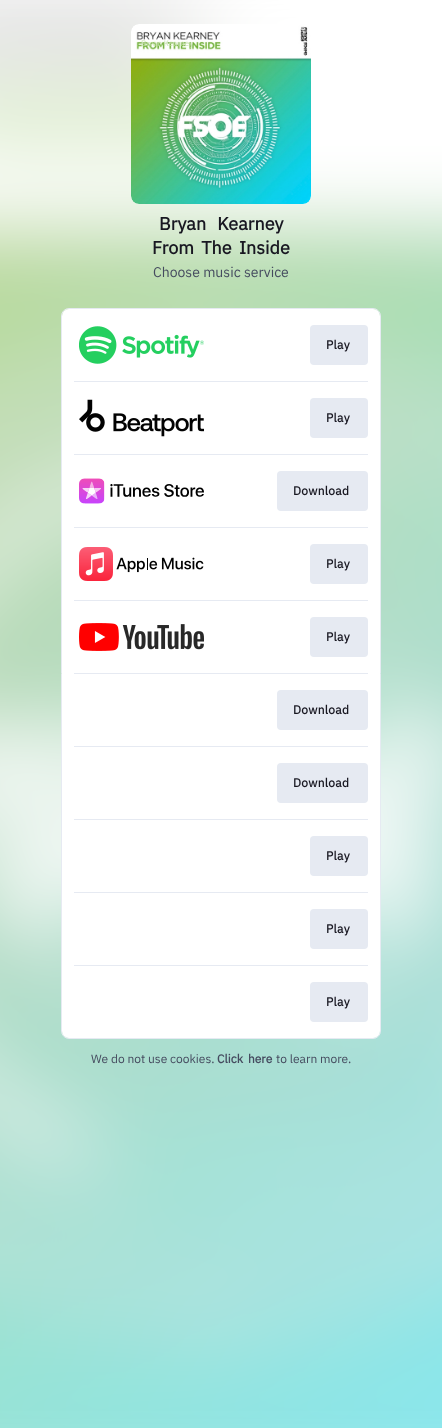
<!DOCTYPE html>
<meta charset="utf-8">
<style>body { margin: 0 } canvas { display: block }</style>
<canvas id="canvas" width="442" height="1428"></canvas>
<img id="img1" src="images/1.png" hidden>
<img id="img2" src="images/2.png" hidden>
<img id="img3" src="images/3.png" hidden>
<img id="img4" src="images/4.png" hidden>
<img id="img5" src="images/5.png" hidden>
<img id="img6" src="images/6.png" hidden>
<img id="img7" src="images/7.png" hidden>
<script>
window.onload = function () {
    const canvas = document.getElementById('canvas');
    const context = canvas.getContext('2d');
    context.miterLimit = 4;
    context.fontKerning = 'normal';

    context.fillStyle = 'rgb(255, 255, 255)';
    context.fillRect(0, 0, 442, 1428);
    context.drawImage(document.getElementById('img1'), 0, 0, 442, 1428);
    context.drawImage(document.getElementById('img2'), 131, 24, 180, 180);
    context.beginPath();
    context.roundRect(61.5, 308.5, 319, 730, 7.5);
    context.strokeStyle = 'rgb(230, 234, 242)';
    context.stroke();
    context.beginPath();
    context.roundRect(62, 309, 318, 729, 7);
    context.fill();
    context.drawImage(document.getElementById('img3'), 79, 326, 125, 38);
    context.fillStyle = 'rgb(230, 234, 242)';
    context.beginPath();
    context.roundRect(310, 325, 58, 40, 4);
    context.fill();
    context.fillRect(74, 381, 294, 1);
    context.drawImage(document.getElementById('img4'), 79, 399, 125, 38);
    context.beginPath();
    context.roundRect(310, 398, 58, 40, 4);
    context.fill();
    context.fillRect(74, 454, 294, 1);
    context.drawImage(document.getElementById('img5'), 79, 478, 125, 26);
    context.beginPath();
    context.roundRect(277, 471, 91, 40, 4);
    context.fill();
    context.fillRect(74, 527, 294, 1);
    context.drawImage(document.getElementById('img6'), 79, 547, 125, 34);
    context.beginPath();
    context.roundRect(310, 544, 58, 40, 4);
    context.fill();
    context.fillRect(74, 600, 294, 1);
    context.drawImage(document.getElementById('img7'), 79, 623, 125, 28);
    context.beginPath();
    context.roundRect(310, 617, 58, 40, 4);
    context.fill();
    context.fillRect(74, 673, 294, 1);
    context.beginPath();
    context.roundRect(277, 690, 91, 40, 4);
    context.fill();
    context.fillRect(74, 746, 294, 1);
    context.beginPath();
    context.roundRect(277, 763, 91, 40, 4);
    context.fill();
    context.fillRect(74, 819, 294, 1);
    context.beginPath();
    context.roundRect(310, 836, 58, 40, 4);
    context.fill();
    context.fillRect(74, 892, 294, 1);
    context.beginPath();
    context.roundRect(310, 909, 58, 40, 4);
    context.fill();
    context.fillRect(74, 965, 294, 1);
    context.beginPath();
    context.roundRect(310, 982, 58, 40, 4);
    context.fill();
    context.font = '8px IBM Plex Sans';
    context.fillStyle = 'rgb(198, 223, 174)';
    context.fillText('Bryan Kearney', 141, 46);
    context.wordSpacing = '7px';
    context.font = 'bold 18px IBM Plex Sans';
    context.fillStyle = 'rgb(24, 23, 33)';
    context.fillText('Bryan Kearney', 159, 230);
    context.wordSpacing = '3px';
    context.fillText('From The Inside', 152, 254);
    context.wordSpacing = '0px';
    context.font = '14px IBM Plex Sans';
    context.fillStyle = 'rgb(69, 75, 95)';
    context.fillText('Choose music service', 153, 277);
    context.letterSpacing = '0.25px';
    context.font = 'bold 12px IBM Plex Sans';
    context.fillStyle = 'rgb(24, 23, 33)';
    context.fillText('Play', 326, 349);
    context.fillText('Play', 326, 422);
    context.fillText('Download', 293, 495);
    context.fillText('Play', 326, 568);
    context.fillText('Play', 326, 641);
    context.fillText('Download', 293, 714);
    context.fillText('Download', 293, 787);
    context.fillText('Play', 326, 860);
    context.fillText('Play', 326, 933);
    context.fillText('Play', 326, 1006);
    context.letterSpacing = '0px';
    context.font = '12px IBM Plex Sans';
    context.fillStyle = 'rgb(69, 75, 95)';
    context.fillText('We do not use cookies.', 91, 1063);
    context.wordSpacing = '2px';
    context.font = 'bold 12px IBM Plex Sans';
    context.fillText('Click here', 217, 1063);
    context.wordSpacing = '0px';
    context.font = '12px IBM Plex Sans';
    context.fillText('to learn more.', 276, 1063);
};
</script>
